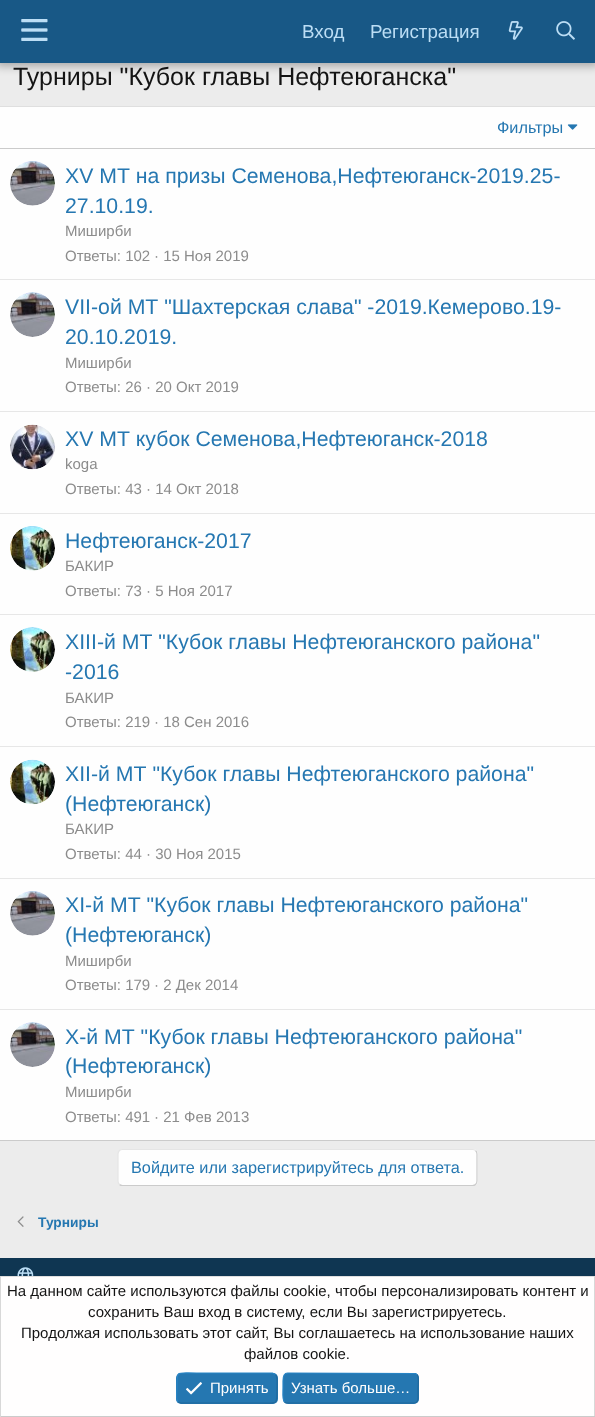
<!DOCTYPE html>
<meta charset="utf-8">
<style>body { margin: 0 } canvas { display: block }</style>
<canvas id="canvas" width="595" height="1417"></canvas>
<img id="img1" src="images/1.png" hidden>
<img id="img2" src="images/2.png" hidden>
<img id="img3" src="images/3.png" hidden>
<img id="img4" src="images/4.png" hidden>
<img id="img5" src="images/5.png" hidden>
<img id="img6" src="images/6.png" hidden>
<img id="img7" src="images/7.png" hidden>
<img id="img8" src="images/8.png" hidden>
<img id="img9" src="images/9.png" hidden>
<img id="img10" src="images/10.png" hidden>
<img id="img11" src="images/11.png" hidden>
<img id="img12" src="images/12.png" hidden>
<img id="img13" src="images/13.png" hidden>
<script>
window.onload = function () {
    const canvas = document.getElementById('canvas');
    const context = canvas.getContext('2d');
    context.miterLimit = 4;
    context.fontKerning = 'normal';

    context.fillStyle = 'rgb(236, 236, 236)';
    context.fillRect(0, 0, 595, 1417);
    context.fillStyle = 'rgba(0, 0, 0, 0.3)';
    context.filter = 'blur(5px)';
    context.beginPath();
    context.rect(-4, -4, 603, 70);
    context.fill();
    context.filter = 'none';
    context.fillStyle = 'rgb(24, 88, 134)';
    context.fillRect(0, 0, 595, 63);
    context.drawImage(document.getElementById('img1'), 21, 19, 27, 22);
    context.drawImage(document.getElementById('img2'), 508, 21, 15, 19);
    context.drawImage(document.getElementById('img3'), 556, 21, 19, 19);
    context.fillStyle = 'rgb(254, 254, 254)';
    context.fillRect(0, 107, 595, 1033);
    context.fillStyle = 'rgb(223, 223, 223)';
    context.fillRect(0, 106, 595, 1);
    context.fillStyle = 'rgb(203, 203, 203)';
    context.fillRect(0, 1140, 595, 1);
    context.fillRect(0, 148, 595, 1);
    context.drawImage(document.getElementById('img4'), 567, 124, 11, 6);
    context.drawImage(document.getElementById('img5'), 10, 161, 45, 45);
    context.fillStyle = 'rgb(231, 231, 231)';
    context.fillRect(0, 279, 595, 1);
    context.drawImage(document.getElementById('img6'), 10, 292, 45, 45);
    context.fillRect(0, 411, 595, 1);
    context.drawImage(document.getElementById('img7'), 10, 424, 45, 46);
    context.fillRect(0, 513, 595, 1);
    context.drawImage(document.getElementById('img8'), 10, 526, 45, 45);
    context.fillRect(0, 614, 595, 1);
    context.drawImage(document.getElementById('img9'), 10, 627, 45, 45);
    context.fillRect(0, 746, 595, 1);
    context.drawImage(document.getElementById('img10'), 10, 759, 45, 46);
    context.fillRect(0, 878, 595, 1);
    context.drawImage(document.getElementById('img5'), 10, 891, 45, 45);
    context.fillRect(0, 1009, 595, 1);
    context.drawImage(document.getElementById('img6'), 10, 1022, 45, 45);
    context.fillStyle = 'rgb(254, 254, 254)';
    context.beginPath();
    context.roundRect(118, 1149, 360, 37, 5);
    context.fill();
    context.beginPath();
    context.moveTo(475.5, 1150.5);
    context.bezierCurveTo(476.5, 1151.5, 477, 1152.5, 477, 1154);
    context.lineTo(477, 1181);
    context.bezierCurveTo(477, 1182.5, 476.5, 1183.5, 475.5, 1184.5);
    context.bezierCurveTo(475, 1185, 473.5, 1185.5, 472.5, 1185.5);
    context.lineTo(122.5, 1185.5);
    context.bezierCurveTo(121.5, 1185.5, 120, 1185, 119.5, 1184.5);
    context.strokeStyle = 'rgb(203, 203, 203)';
    context.lineWidth = 1.2;
    context.stroke();
    context.beginPath();
    context.moveTo(119.5, 1184.5);
    context.bezierCurveTo(118.5, 1183.5, 118, 1182.5, 118, 1181);
    context.lineTo(118, 1154);
    context.bezierCurveTo(118, 1152.5, 118.5, 1151.5, 119.5, 1150.5);
    context.bezierCurveTo(120, 1150, 121.5, 1149.5, 122.5, 1149.5);
    context.lineTo(472.5, 1149.5);
    context.bezierCurveTo(473.5, 1149.5, 475, 1150, 475.5, 1150.5);
    context.strokeStyle = 'rgb(229, 229, 229)';
    context.stroke();
    context.drawImage(document.getElementById('img11'), 17, 1216, 7, 11);
    context.fillStyle = 'rgb(15, 54, 82)';
    context.fillRect(0, 1258, 595, 18);
    context.drawImage(document.getElementById('img12'), 17, 1267, 17, 9);
    context.fillStyle = 'rgb(255, 254, 254)';
    context.fillRect(1, 1277, 593, 139);
    context.fillStyle = 'rgb(223, 223, 223)';
    context.fillRect(0, 1276, 595, 1);
    context.fillStyle = 'rgb(216, 216, 216)';
    context.fillRect(594, 1276, 1, 141);
    context.fillStyle = 'rgb(203, 203, 203)';
    context.fillRect(0, 1416, 595, 1);
    context.fillStyle = 'rgb(216, 216, 216)';
    context.fillRect(0, 1276, 1, 141);
    context.fillStyle = 'rgb(37, 119, 177)';
    context.beginPath();
    context.roundRect(176, 1373, 102, 31, 5);
    context.fill();
    context.beginPath();
    context.moveTo(275.5, 1374.5);
    context.bezierCurveTo(278, 1377, 277, 1385, 277, 1388);
    context.bezierCurveTo(277, 1406.5, 278, 1403, 257.5, 1403);
    context.lineTo(181, 1403);
    context.lineTo(178, 1402);
    context.strokeStyle = 'rgb(33, 105, 156)';
    context.stroke();
    context.beginPath();
    context.moveTo(178, 1402);
    context.bezierCurveTo(175.5, 1399, 177, 1391.5, 177, 1388);
    context.bezierCurveTo(177, 1369.5, 176, 1373, 196.5, 1373);
    context.lineTo(272.5, 1373);
    context.lineTo(275.5, 1374.5);
    context.strokeStyle = 'rgb(41, 133, 198)';
    context.stroke();
    context.drawImage(document.getElementById('img13'), 186, 1382, 16, 13);
    context.beginPath();
    context.roundRect(283, 1373, 136, 31, 5);
    context.fill();
    context.beginPath();
    context.moveTo(417, 1374.5);
    context.bezierCurveTo(419.5, 1377, 418, 1385, 418, 1388);
    context.lineTo(418, 1395);
    context.bezierCurveTo(418, 1398.5, 418.5, 1403, 414, 1403);
    context.lineTo(286, 1403);
    context.lineTo(284.5, 1402);
    context.strokeStyle = 'rgb(33, 105, 156)';
    context.stroke();
    context.beginPath();
    context.moveTo(284.5, 1402);
    context.bezierCurveTo(282, 1399, 283, 1391.5, 283, 1388);
    context.lineTo(283, 1381);
    context.bezierCurveTo(283, 1378, 283, 1373, 287.5, 1373);
    context.lineTo(415.5, 1373.5);
    context.lineTo(417, 1374.5);
    context.strokeStyle = 'rgb(41, 133, 198)';
    context.stroke();
    context.font = '18.75px Liberation Sans';
    context.fillStyle = 'rgb(188, 222, 245)';
    context.fillText('Вход', 302, 38);
    context.fillText('Регистрация', 370, 38);
    context.font = '25px Liberation Sans';
    context.fillStyle = 'rgb(20, 20, 20)';
    context.fillText('Турниры "Кубок главы Нефтеюганска"', 13, 85);
    context.font = '16.25px Liberation Sans';
    context.fillStyle = 'rgb(37, 119, 177)';
    context.fillText('Фильтры', 497, 133);
    context.font = '21.25px Liberation Sans';
    context.fillText('XV МТ на призы Семенова,Нефтеюганск-2019.25-', 65, 183);
    context.fillText('27.10.19.', 65, 213);
    context.font = '15px Liberation Sans';
    context.fillStyle = 'rgb(140, 140, 140)';
    context.fillText('Миширби', 65, 236);
    context.fillText('Ответы: 102', 65, 261);
    context.fillText('· 15 Ноя 2019', 154, 261);
    context.font = '21.25px Liberation Sans';
    context.fillStyle = 'rgb(37, 119, 177)';
    context.fillText('VII-ой МТ "Шахтерская слава" -2019.Кемерово.19-', 65, 314);
    context.fillText('20.10.2019.', 65, 344);
    context.font = '15px Liberation Sans';
    context.fillStyle = 'rgb(140, 140, 140)';
    context.fillText('Миширби', 65, 368);
    context.fillText('Ответы: 26', 65, 392);
    context.fillText('· 20 Окт 2019', 146, 392);
    context.font = '21.25px Liberation Sans';
    context.fillStyle = 'rgb(37, 119, 177)';
    context.fillText('XV МТ кубок Семенова,Нефтеюганск-2018', 65, 446);
    context.font = '15px Liberation Sans';
    context.fillStyle = 'rgb(140, 140, 140)';
    context.fillText('koga', 65, 469);
    context.fillText('Ответы: 43', 65, 494);
    context.fillText('· 14 Окт 2018', 146, 494);
    context.font = '21.25px Liberation Sans';
    context.fillStyle = 'rgb(37, 119, 177)';
    context.fillText('Нефтеюганск-2017', 65, 548);
    context.font = '15px Liberation Sans';
    context.fillStyle = 'rgb(140, 140, 140)';
    context.fillText('БАКИР', 65, 571);
    context.fillText('Ответы: 73', 65, 596);
    context.fillText('· 5 Ноя 2017', 146, 596);
    context.font = '21.25px Liberation Sans';
    context.fillStyle = 'rgb(37, 119, 177)';
    context.fillText('XIII-й МТ "Кубок главы Нефтеюганского района"', 65, 649);
    context.fillText('-2016', 65, 679);
    context.font = '15px Liberation Sans';
    context.fillStyle = 'rgb(140, 140, 140)';
    context.fillText('БАКИР', 65, 703);
    context.fillText('Ответы: 219', 65, 727);
    context.fillText('· 18 Сен 2016', 154, 727);
    context.font = '21.25px Liberation Sans';
    context.fillStyle = 'rgb(37, 119, 177)';
    context.fillText('XII-й МТ "Кубок главы Нефтеюганского района"', 65, 781);
    context.fillText('(Нефтеюганск)', 65, 811);
    context.font = '15px Liberation Sans';
    context.fillStyle = 'rgb(140, 140, 140)';
    context.fillText('БАКИР', 65, 834);
    context.fillText('Ответы: 44', 65, 859);
    context.fillText('· 30 Ноя 2015', 146, 859);
    context.font = '21.25px Liberation Sans';
    context.fillStyle = 'rgb(37, 119, 177)';
    context.fillText('XI-й МТ "Кубок главы Нефтеюганского района"', 65, 912);
    context.fillText('(Нефтеюганск)', 65, 942);
    context.font = '15px Liberation Sans';
    context.fillStyle = 'rgb(140, 140, 140)';
    context.fillText('Миширби', 65, 966);
    context.fillText('Ответы: 179', 65, 990);
    context.fillText('· 2 Дек 2014', 154, 990);
    context.font = '21.25px Liberation Sans';
    context.fillStyle = 'rgb(37, 119, 177)';
    context.fillText('X-й МТ "Кубок главы Нефтеюганского района"', 65, 1044);
    context.fillText('(Нефтеюганск)', 65, 1073);
    context.font = '15px Liberation Sans';
    context.fillStyle = 'rgb(140, 140, 140)';
    context.fillText('Миширби', 65, 1097);
    context.fillText('Ответы: 491', 65, 1122);
    context.fillText('· 21 Фев 2013', 154, 1122);
    context.font = '16.25px Liberation Sans';
    context.fillStyle = 'rgb(37, 119, 177)';
    context.fillText('Войдите или зарегистрируйтесь для ответа.', 131, 1173);
    context.font = 'bold 13.75px Liberation Sans';
    context.fillText('Турниры', 38, 1227);
    context.font = '15px Liberation Sans';
    context.fillStyle = 'rgb(20, 20, 20)';
    context.fillText('На данном сайте используются файлы cookie, чтобы персонализировать контент и', 7, 1296);
    context.fillText('сохранить Ваш вход в систему, если Вы зарегистрируетесь.', 88, 1317);
    context.fillText('Продолжая использовать этот сайт, Вы соглашаетесь на использование наших', 21, 1338);
    context.fillText('файлов cookie.', 244, 1359);
    context.fillStyle = 'rgb(255, 254, 254)';
    context.fillText('Принять', 210, 1393);
    context.fillText('Узнать больше…', 291, 1393);
};
</script>
